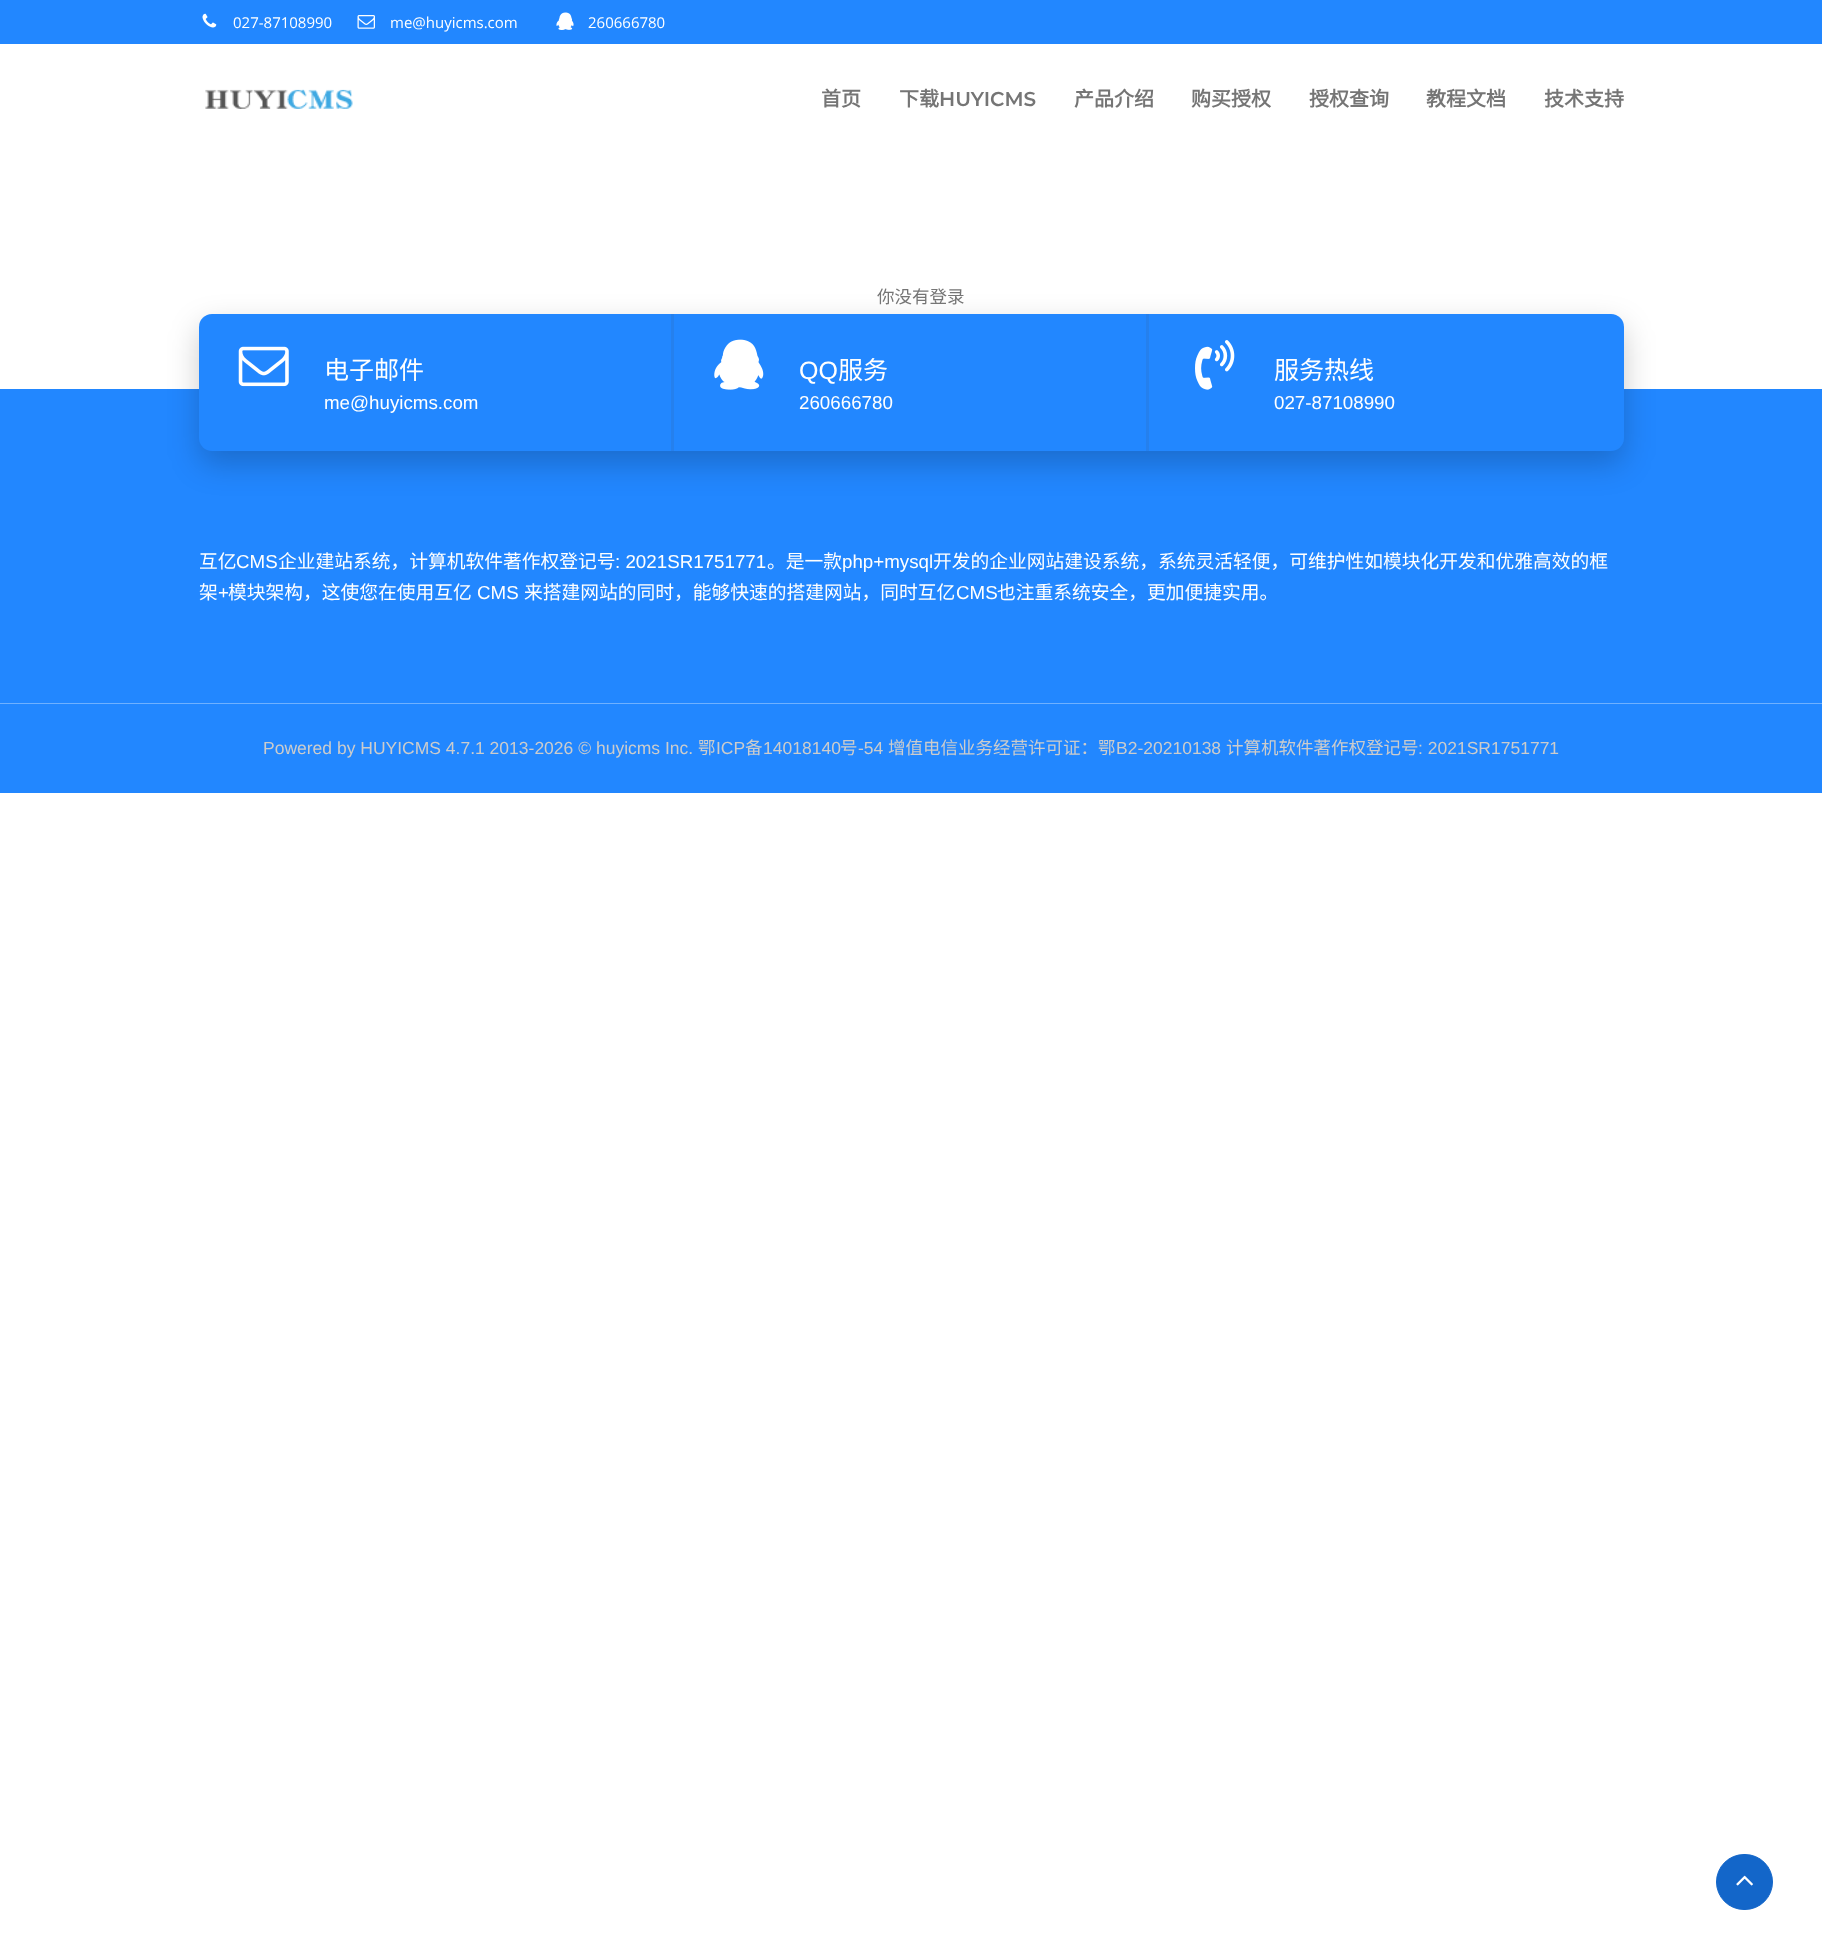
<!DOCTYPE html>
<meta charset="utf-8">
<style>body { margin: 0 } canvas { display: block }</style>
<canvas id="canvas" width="1822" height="1960"></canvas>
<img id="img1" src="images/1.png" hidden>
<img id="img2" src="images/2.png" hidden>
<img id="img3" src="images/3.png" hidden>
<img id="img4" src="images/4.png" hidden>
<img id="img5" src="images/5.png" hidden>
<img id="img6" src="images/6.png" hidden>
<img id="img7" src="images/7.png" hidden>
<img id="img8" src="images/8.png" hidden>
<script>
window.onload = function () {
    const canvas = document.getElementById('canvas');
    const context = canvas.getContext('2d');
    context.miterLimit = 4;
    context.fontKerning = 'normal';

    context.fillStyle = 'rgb(255, 255, 255)';
    context.fillRect(0, 0, 1822, 1960);
    context.fillStyle = 'rgb(34, 135, 255)';
    context.fillRect(0, 0, 1822, 44);
    context.drawImage(document.getElementById('img1'), 202, 13, 15, 15);
    context.drawImage(document.getElementById('img2'), 357, 15, 18, 14);
    context.drawImage(document.getElementById('img3'), 556, 12, 18, 18);
    context.drawImage(document.getElementById('img4'), 205, 89, 148, 20);
    context.fillRect(0, 389, 1822, 404);
    context.fillStyle = 'rgba(0, 0, 0, 0.2)';
    context.filter = 'blur(15.5px)';
    context.beginPath();
    context.roundRect(199, 326, 1425, 138, 13);
    context.fill();
    context.filter = 'none';
    context.fillStyle = 'rgb(34, 135, 255)';
    context.beginPath();
    context.roundRect(199, 314, 1425, 137, 13);
    context.fill();
    context.fillStyle = 'rgb(37, 128, 237)';
    context.fillRect(671, 314, 3, 137);
    context.drawImage(document.getElementById('img5'), 238, 346, 51, 41);
    context.fillRect(1146, 314, 3, 137);
    context.drawImage(document.getElementById('img6'), 714, 339, 50, 51);
    context.drawImage(document.getElementById('img7'), 1195, 340, 40, 50);
    context.fillStyle = 'rgb(111, 177, 255)';
    context.fillRect(0, 703, 1822, 1);
    context.fillStyle = 'rgb(19, 102, 201)';
    context.beginPath();
    context.roundRect(1716.5, 1854.5, 56, 55, 27.5);
    context.fill();
    context.strokeStyle = 'rgb(19, 102, 201)';
    context.stroke();
    context.drawImage(document.getElementById('img8'), 1736, 1875, 17, 11);
    context.font = '15px Open Sans';
    context.fillStyle = 'rgb(255, 255, 255)';
    context.fillText('027-87108990', 233, 28);
    context.fillText('me@huyicms.com', 390, 28);
    context.fillText('260666780', 588, 28);
    context.font = 'bold 20px Noto Sans CJK SC';
    context.fillStyle = 'rgb(117, 117, 117)';
    context.fillText('首页', 821, 106);
    context.fillText('下载', 899, 106);
    context.font = '600 20px Montserrat';
    context.fillText('HUYICMS', 939, 106);
    context.font = 'bold 20px Noto Sans CJK SC';
    context.fillText('产品介绍', 1074, 106);
    context.fillText('购买授权', 1191, 106);
    context.fillText('授权查询', 1309, 106);
    context.fillText('教程文档', 1426, 106);
    context.fillText('技术支持', 1544, 106);
    context.font = '17.5px Noto Sans CJK SC';
    context.fillText('你没有登录', 877, 303);
    context.font = '25px Noto Sans CJK SC';
    context.fillStyle = 'rgb(255, 255, 255)';
    context.fillText('电子邮件', 324, 379);
    context.font = '18.75px Liberation Sans';
    context.fillText('me@huyicms.com', 324, 409);
    context.font = '25px Liberation Sans';
    context.fillText('QQ', 799, 379);
    context.font = '25px Noto Sans CJK SC';
    context.fillText('服务', 838, 379);
    context.font = '18.75px Liberation Sans';
    context.fillText('260666780', 799, 409);
    context.font = '25px Noto Sans CJK SC';
    context.fillText('服务热线', 1274, 379);
    context.font = '18.75px Liberation Sans';
    context.fillText('027-87108990', 1274, 409);
    context.font = '18.75px Noto Sans CJK SC';
    context.fillText('互亿', 199, 568);
    context.font = '18.75px Liberation Sans';
    context.fillText('CMS', 236, 568);
    context.font = '18.75px Noto Sans CJK SC';
    context.fillText('企业建站系统，计算机软件著作权登记号', 278, 568);
    context.font = '18.75px Liberation Sans';
    context.fillText(': 2021SR1751771', 615, 568);
    context.font = '18.75px Noto Sans CJK SC';
    context.fillText('。是一款', 767, 568);
    context.font = '18.75px Liberation Sans';
    context.fillText('php+mysql', 842, 568);
    context.font = '18.75px Noto Sans CJK SC';
    context.fillText('开发的企业网站建设系统，系统灵活轻便，可维护性如模块化开发和优雅高效的框', 933, 568);
    context.fillText('架', 199, 599);
    context.font = '18.75px Liberation Sans';
    context.fillText('+', 218, 599);
    context.font = '18.75px Noto Sans CJK SC';
    context.fillText('模块架构，这使您在使用互亿', 228, 599);
    context.font = '18.75px Liberation Sans';
    context.fillText('CMS', 477, 599);
    context.font = '18.75px Noto Sans CJK SC';
    context.fillText('来搭建网站的同时，能够快速的搭建网站，同时互亿', 524, 599);
    context.font = '18.75px Liberation Sans';
    context.fillText('CMS', 956, 599);
    context.font = '18.75px Noto Sans CJK SC';
    context.fillText('也注重系统安全，更加便捷实用。', 997, 599);
    context.font = '17.5px Liberation Sans';
    context.fillStyle = 'rgb(204, 204, 204)';
    context.fillText('Powered by HUYICMS 4.7.1 2013-2026 © huyicms Inc.', 263, 754);
    context.font = '17.5px Noto Sans CJK SC';
    context.fillText('鄂', 698, 754);
    context.font = '17.5px Liberation Sans';
    context.fillText('ICP', 716, 754);
    context.font = '17.5px Noto Sans CJK SC';
    context.fillText('备', 745, 754);
    context.font = '17.5px Liberation Sans';
    context.fillText('14018140', 763, 754);
    context.font = '17.5px Noto Sans CJK SC';
    context.fillText('号', 840, 754);
    context.font = '17.5px Liberation Sans';
    context.fillText('-54', 858, 754);
    context.font = '17.5px Noto Sans CJK SC';
    context.fillText('增值电信业务经营许可证：鄂', 888, 754);
    context.font = '17.5px Liberation Sans';
    context.fillText('B2-20210138', 1116, 754);
    context.font = '17.5px Noto Sans CJK SC';
    context.fillText('计算机软件著作权登记号', 1226, 754);
    context.font = '17.5px Liberation Sans';
    context.fillText(': 2021SR1751771', 1418, 754);
};
</script>
